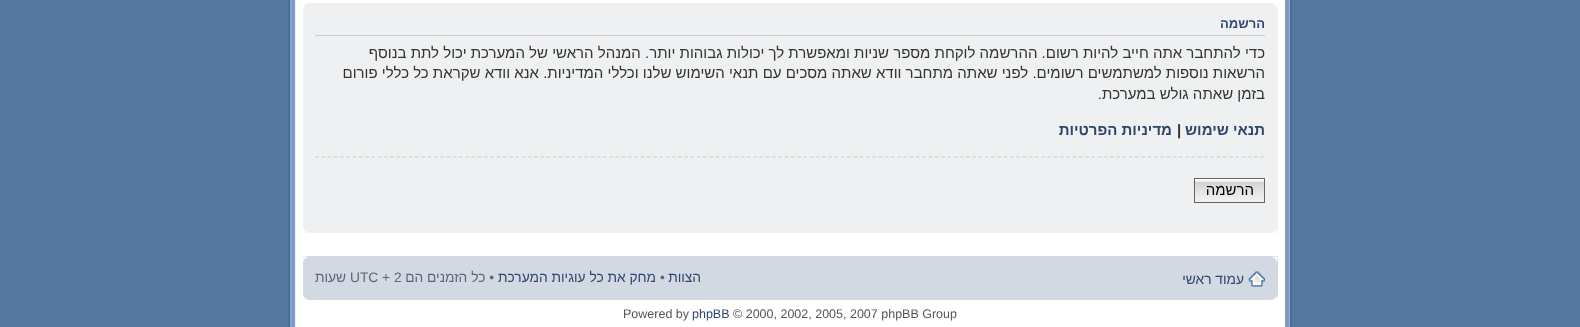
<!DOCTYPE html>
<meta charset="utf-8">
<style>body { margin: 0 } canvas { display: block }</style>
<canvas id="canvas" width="1580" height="327"></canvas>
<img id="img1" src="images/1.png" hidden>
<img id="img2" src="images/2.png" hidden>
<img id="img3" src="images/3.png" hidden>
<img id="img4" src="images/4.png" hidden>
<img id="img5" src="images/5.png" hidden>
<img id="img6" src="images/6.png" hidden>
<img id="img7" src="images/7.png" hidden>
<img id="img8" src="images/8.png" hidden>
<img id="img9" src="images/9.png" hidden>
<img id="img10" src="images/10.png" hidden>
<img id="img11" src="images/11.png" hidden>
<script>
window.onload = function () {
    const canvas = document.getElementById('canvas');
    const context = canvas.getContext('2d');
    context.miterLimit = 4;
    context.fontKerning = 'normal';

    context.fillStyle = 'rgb(86, 119, 160)';
    context.fillRect(0, 0, 1580, 327);
    context.drawImage(document.getElementById('img1'), 288, 0, 1004, 327);
    context.fillStyle = 'rgb(238, 240, 241)';
    context.fillRect(303, 3, 975, 230);
    context.drawImage(document.getElementById('img2'), 303, 3, 5, 5);
    context.drawImage(document.getElementById('img3'), 1272, 3, 6, 5);
    context.fillStyle = 'rgb(204, 204, 204)';
    context.fillRect(315, 35, 950, 1);
    context.beginPath();
    context.moveTo(315, 157);
    context.lineTo(1265, 157);
    context.strokeStyle = 'rgb(204, 204, 204)';
    context.lineWidth = 1.2;
    context.setLineDash([3.75, 2.51]);
    context.stroke();
    context.drawImage(document.getElementById('img4'), 1193, 181, 71, 22);
    context.fillStyle = 'rgb(250, 250, 250)';
    context.fillRect(1195, 179, 69, 2);
    context.strokeStyle = 'rgb(102, 102, 102)';
    context.lineWidth = 1;
    context.setLineDash([]);
    context.strokeRect(1194.5, 178.5, 70, 24);
    context.drawImage(document.getElementById('img5'), 303, 228, 5, 5);
    context.drawImage(document.getElementById('img6'), 1272, 228, 6, 5);
    context.fillStyle = 'rgb(210, 217, 227)';
    context.fillRect(303, 256, 975, 44);
    context.drawImage(document.getElementById('img7'), 303, 256, 6, 7);
    context.drawImage(document.getElementById('img8'), 1271, 256, 7, 7);
    context.drawImage(document.getElementById('img9'), 1248, 271, 17, 16);
    context.drawImage(document.getElementById('img10'), 303, 294, 6, 6);
    context.drawImage(document.getElementById('img11'), 1271, 294, 7, 6);
    context.direction = 'rtl';
    context.font = 'bold 13px Liberation Sans';
    context.fillStyle = 'rgb(51, 72, 118)';
    context.fillText('הרשמה', 1265, 28);
    context.font = '15px Liberation Sans';
    context.fillStyle = 'rgb(51, 51, 51)';
    context.fillText('כדי להתחבר אתה חייב להיות רשום. ההרשמה לוקחת מספר שניות ומאפשרת לך יכולות גבוהות יותר. המנהל הראשי של המערכת יכול לתת בנוסף', 1265, 58);
    context.fillText('הרשאות נוספות למשתמשים רשומים. לפני שאתה מתחבר וודא שאתה מסכים עם תנאי השימוש שלנו וכללי המדיניות. אנא וודא שקראת כל כללי פורום', 1265, 78);
    context.fillText('בזמן שאתה גולש במערכת.', 1265, 99);
    context.font = 'bold 15px Liberation Sans';
    context.fillStyle = 'rgb(47, 70, 106)';
    context.fillText('תנאי שימוש', 1265, 135);
    context.direction = 'ltr';
    context.fillStyle = 'rgb(51, 51, 51)';
    context.fillText('|', 1177, 135);
    context.direction = 'rtl';
    context.fillStyle = 'rgb(47, 70, 106)';
    context.fillText('מדיניות הפרטיות', 1172, 135);
    context.font = '15px Liberation Sans';
    context.fillStyle = 'rgb(0, 0, 0)';
    context.fillText('הרשמה', 1254, 195);
    context.font = '13.75px Liberation Sans';
    context.fillStyle = 'rgb(47, 70, 106)';
    context.fillText('עמוד ראשי', 1244, 284);
    context.fillText('הצוות', 701, 282);
    context.direction = 'ltr';
    context.fillStyle = 'rgb(95, 100, 118)';
    context.fillText('•', 660, 282);
    context.direction = 'rtl';
    context.fillStyle = 'rgb(47, 70, 106)';
    context.fillText('מחק את כל עוגיות המערכת', 656, 282);
    context.fillStyle = 'rgb(95, 100, 118)';
    context.fillText('• כל הזמנים הם', 494, 282);
    context.direction = 'ltr';
    context.fillText('UTC + 2', 350, 282);
    context.direction = 'rtl';
    context.fillText('שעות', 346, 282);
    context.direction = 'ltr';
    context.font = '12.5px Liberation Sans';
    context.fillStyle = 'rgb(85, 85, 85)';
    context.fillText('© 2000, 2002, 2005, 2007 phpBB Group', 733, 318);
    context.fillStyle = 'rgb(47, 70, 106)';
    context.fillText('phpBB', 692, 318);
    context.fillStyle = 'rgb(85, 85, 85)';
    context.fillText('Powered by', 623, 318);
};
</script>
